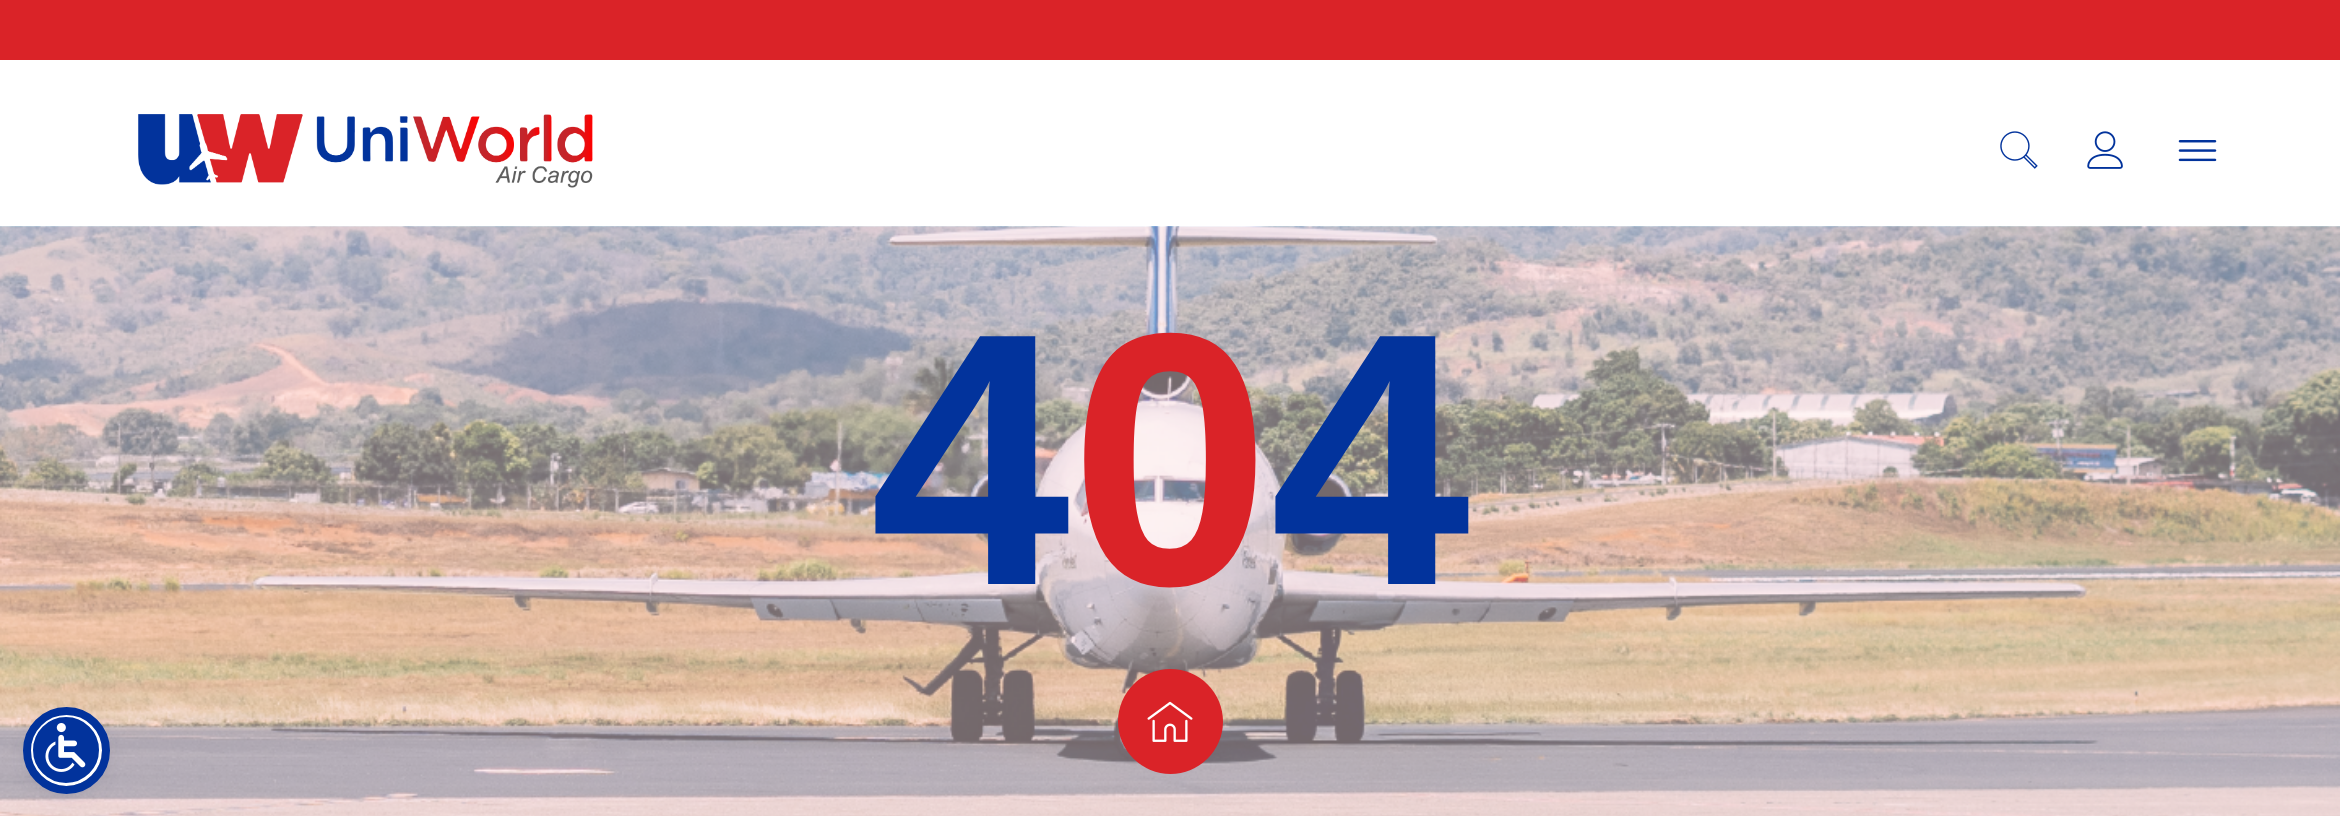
<!DOCTYPE html>
<meta charset="utf-8">
<style>body { margin: 0 } canvas { display: block }</style>
<canvas id="canvas" width="2340" height="816"></canvas>
<img id="img1" src="images/1.png" hidden>
<img id="img2" src="images/2.png" hidden>
<img id="img3" src="images/3.png" hidden>
<img id="img4" src="images/4.png" hidden>
<img id="img5" src="images/5.png" hidden>
<img id="img6" src="images/6.png" hidden>
<img id="img7" src="images/7.png" hidden>
<script>
window.onload = function () {
    const canvas = document.getElementById('canvas');
    const context = canvas.getContext('2d');
    context.miterLimit = 4;
    context.fontKerning = 'normal';

    context.fillStyle = 'rgb(255, 255, 255)';
    context.fillRect(0, 0, 2340, 816);
    context.fillStyle = 'rgb(218, 35, 40)';
    context.fillRect(0, 0, 2340, 60);
    context.drawImage(document.getElementById('img1'), 138, 114, 455, 74);
    context.drawImage(document.getElementById('img2'), 2000, 131, 38, 38);
    context.drawImage(document.getElementById('img3'), 2087, 131, 36, 38);
    context.drawImage(document.getElementById('img4'), 2178, 140, 39, 22);
    context.drawImage(document.getElementById('img5'), 0, 226, 2340, 590);
    context.beginPath();
    context.arc(1170.5, 721.5, 52.5, 0, 2 * Math.PI);
    context.fill();
    context.drawImage(document.getElementById('img6'), 1147, 701, 46, 41);
    context.fillStyle = 'rgba(93, 100, 148, 0.2)';
    context.filter = 'blur(3px)';
    context.beginPath();
    context.roundRect(30, 717, 72, 72, 36);
    context.fill();
    context.filter = 'none';
    context.fillStyle = 'rgba(37, 44, 97, 0.15)';
    context.filter = 'blur(11px)';
    context.beginPath();
    context.roundRect(30, 722, 72, 72, 36);
    context.fill();
    context.filter = 'none';
    context.fillStyle = 'rgb(2, 51, 156)';
    context.beginPath();
    context.arc(66, 750, 34.5, 0, 2 * Math.PI);
    context.fill();
    context.strokeStyle = 'rgb(255, 255, 255)';
    context.lineWidth = 3;
    context.stroke();
    context.beginPath();
    context.arc(66.5, 750.5, 39.5, 0, 2 * Math.PI);
    context.strokeStyle = 'rgb(2, 51, 156)';
    context.lineWidth = 8;
    context.stroke();
    context.drawImage(document.getElementById('img7'), 45, 723, 41, 49);
    context.font = 'bold 360px Liberation Sans';
    context.fillText('4', 870, 584);
    context.fillStyle = 'rgb(218, 35, 40)';
    context.fillText('0', 1070, 584);
    context.fillStyle = 'rgb(2, 51, 156)';
    context.fillText('4', 1270, 584);
};
</script>
